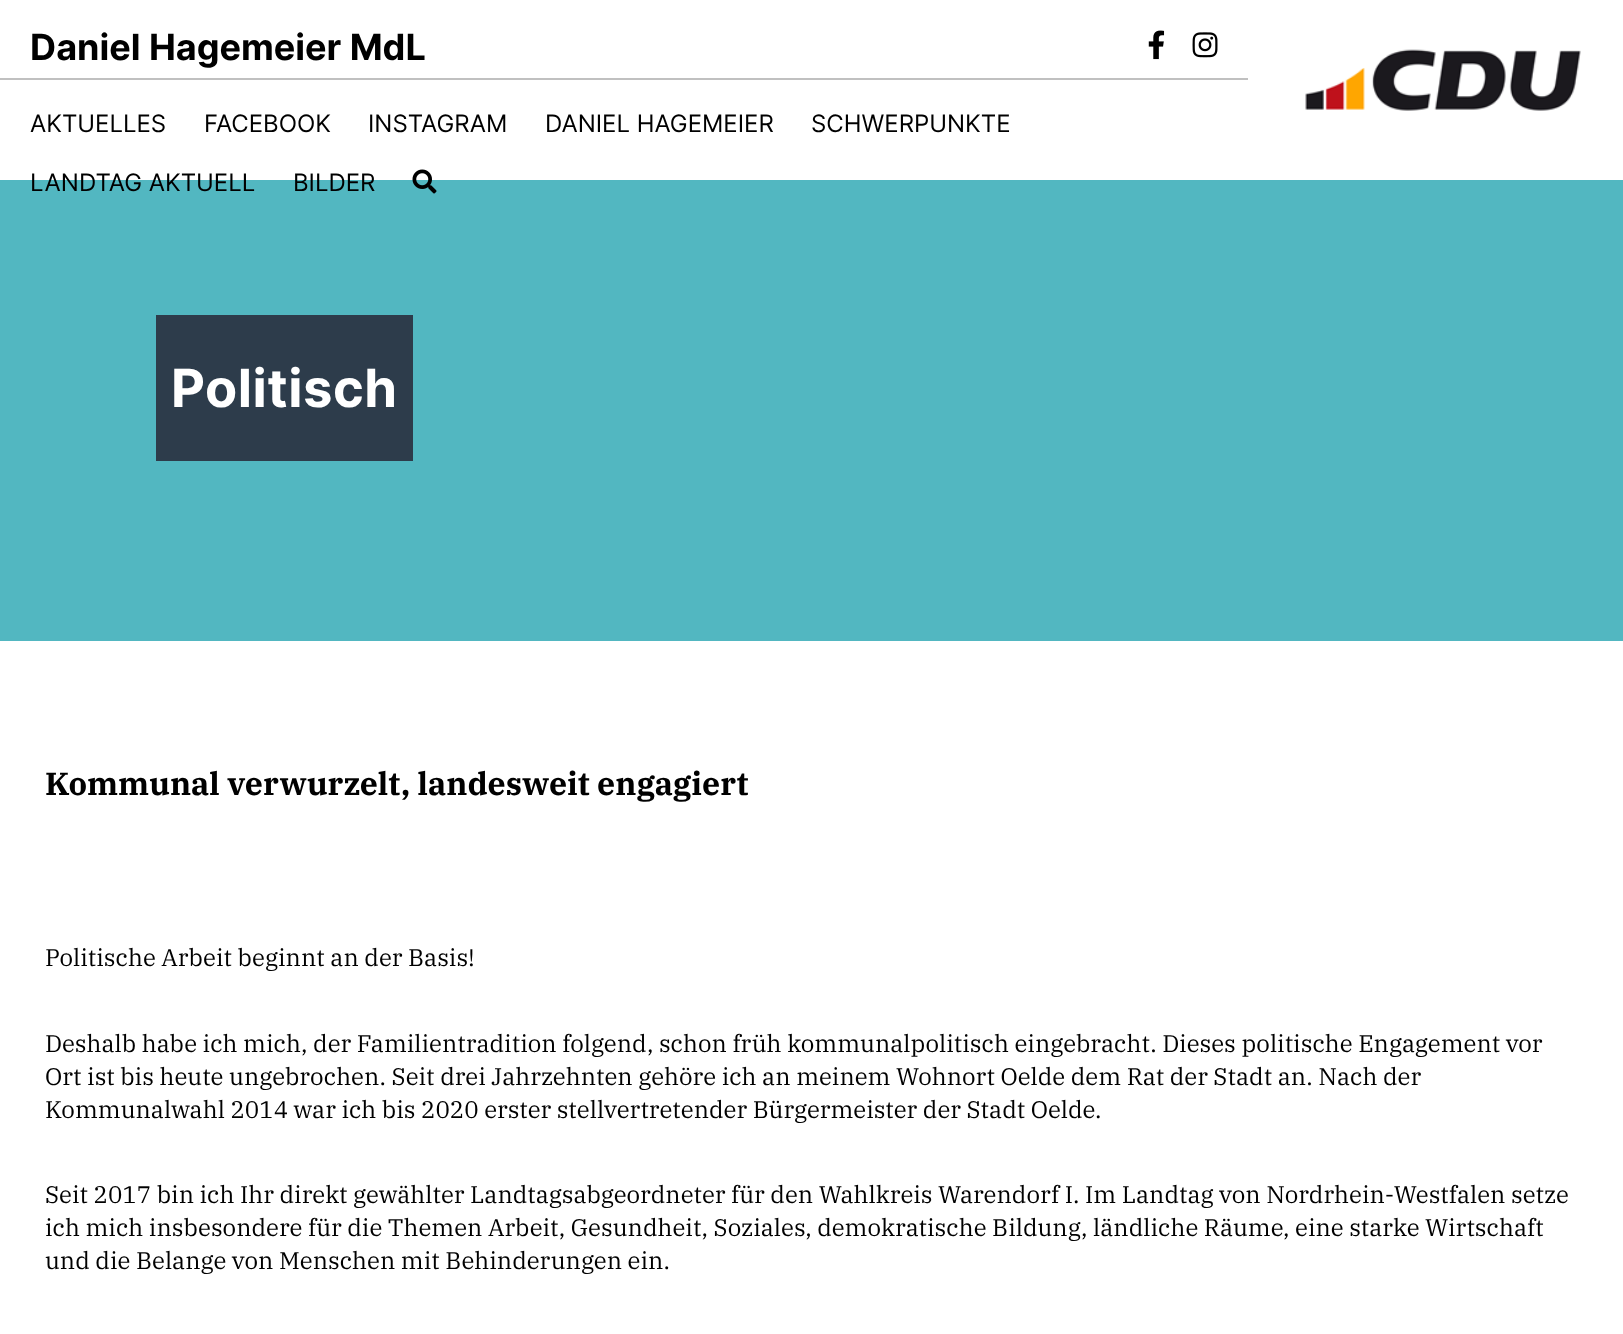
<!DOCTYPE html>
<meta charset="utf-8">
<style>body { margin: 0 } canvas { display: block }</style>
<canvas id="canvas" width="1623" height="1334"></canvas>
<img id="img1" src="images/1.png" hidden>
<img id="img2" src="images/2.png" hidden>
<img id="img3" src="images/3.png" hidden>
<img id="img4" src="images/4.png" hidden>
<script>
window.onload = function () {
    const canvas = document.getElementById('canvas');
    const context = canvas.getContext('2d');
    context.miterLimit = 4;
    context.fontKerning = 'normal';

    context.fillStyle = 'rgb(255, 255, 255)';
    context.fillRect(0, 0, 1623, 1334);
    context.fillStyle = 'rgb(192, 192, 192)';
    context.fillRect(0, 78, 1248, 2);
    context.drawImage(document.getElementById('img1'), 1148, 30, 17, 30);
    context.drawImage(document.getElementById('img2'), 1192, 32, 26, 26);
    context.drawImage(document.getElementById('img3'), 1305, 49, 276, 62);
    context.fillStyle = 'rgb(82, 183, 193)';
    context.fillRect(0, 180, 1623, 461);
    context.drawImage(document.getElementById('img4'), 412, 169, 25, 25);
    context.fillStyle = 'rgb(45, 60, 75)';
    context.fillRect(156, 315, 257, 146);
    context.font = 'bold 36px Inter';
    context.fillStyle = 'rgb(0, 0, 0)';
    context.fillText('Daniel Hagemeier MdL', 30, 60);
    context.font = '24px Inter';
    context.fillText('AKTUELLES', 30, 132);
    context.fillText('FACEBOOK', 204, 132);
    context.fillText('INSTAGRAM', 368, 132);
    context.fillText('DANIEL HAGEMEIER', 545, 132);
    context.fillText('SCHWERPUNKTE', 811, 132);
    context.fillText('LANDTAG AKTUELL', 30, 191);
    context.fillText('BILDER', 293, 191);
    context.letterSpacing = '0.5px';
    context.font = 'bold 52.5px Inter';
    context.fillStyle = 'rgb(255, 255, 255)';
    context.fillText('Politisch', 171, 407);
    context.letterSpacing = '0px';
    context.font = 'bold 32px IBM Plex Serif';
    context.fillStyle = 'rgb(0, 0, 0)';
    context.fillText('Kommunal verwurzelt, landesweit engagiert', 45, 795);
    context.font = '24px IBM Plex Serif';
    context.fillText('Politische Arbeit beginnt an der Basis!', 45, 966);
    context.fillText('Deshalb habe ich mich, der Familientradition folgend, schon früh kommunalpolitisch eingebracht. Dieses politische Engagement vor', 45, 1052);
    context.fillText('Ort ist bis heute ungebrochen. Seit drei Jahrzehnten gehöre ich an meinem Wohnort Oelde dem Rat der Stadt an. Nach der', 45, 1085);
    context.fillText('Kommunalwahl 2014 war ich bis 2020 erster stellvertretender Bürgermeister der Stadt Oelde.', 45, 1118);
    context.fillText('Seit 2017 bin ich Ihr direkt gewählter Landtagsabgeordneter für den Wahlkreis Warendorf I. Im Landtag von Nordrhein-Westfalen setze', 45, 1203);
    context.fillText('ich mich insbesondere für die Themen Arbeit, Gesundheit, Soziales, demokratische Bildung, ländliche Räume, eine starke Wirtschaft', 45, 1236);
    context.fillText('und die Belange von Menschen mit Behinderungen ein.', 45, 1269);
};
</script>
